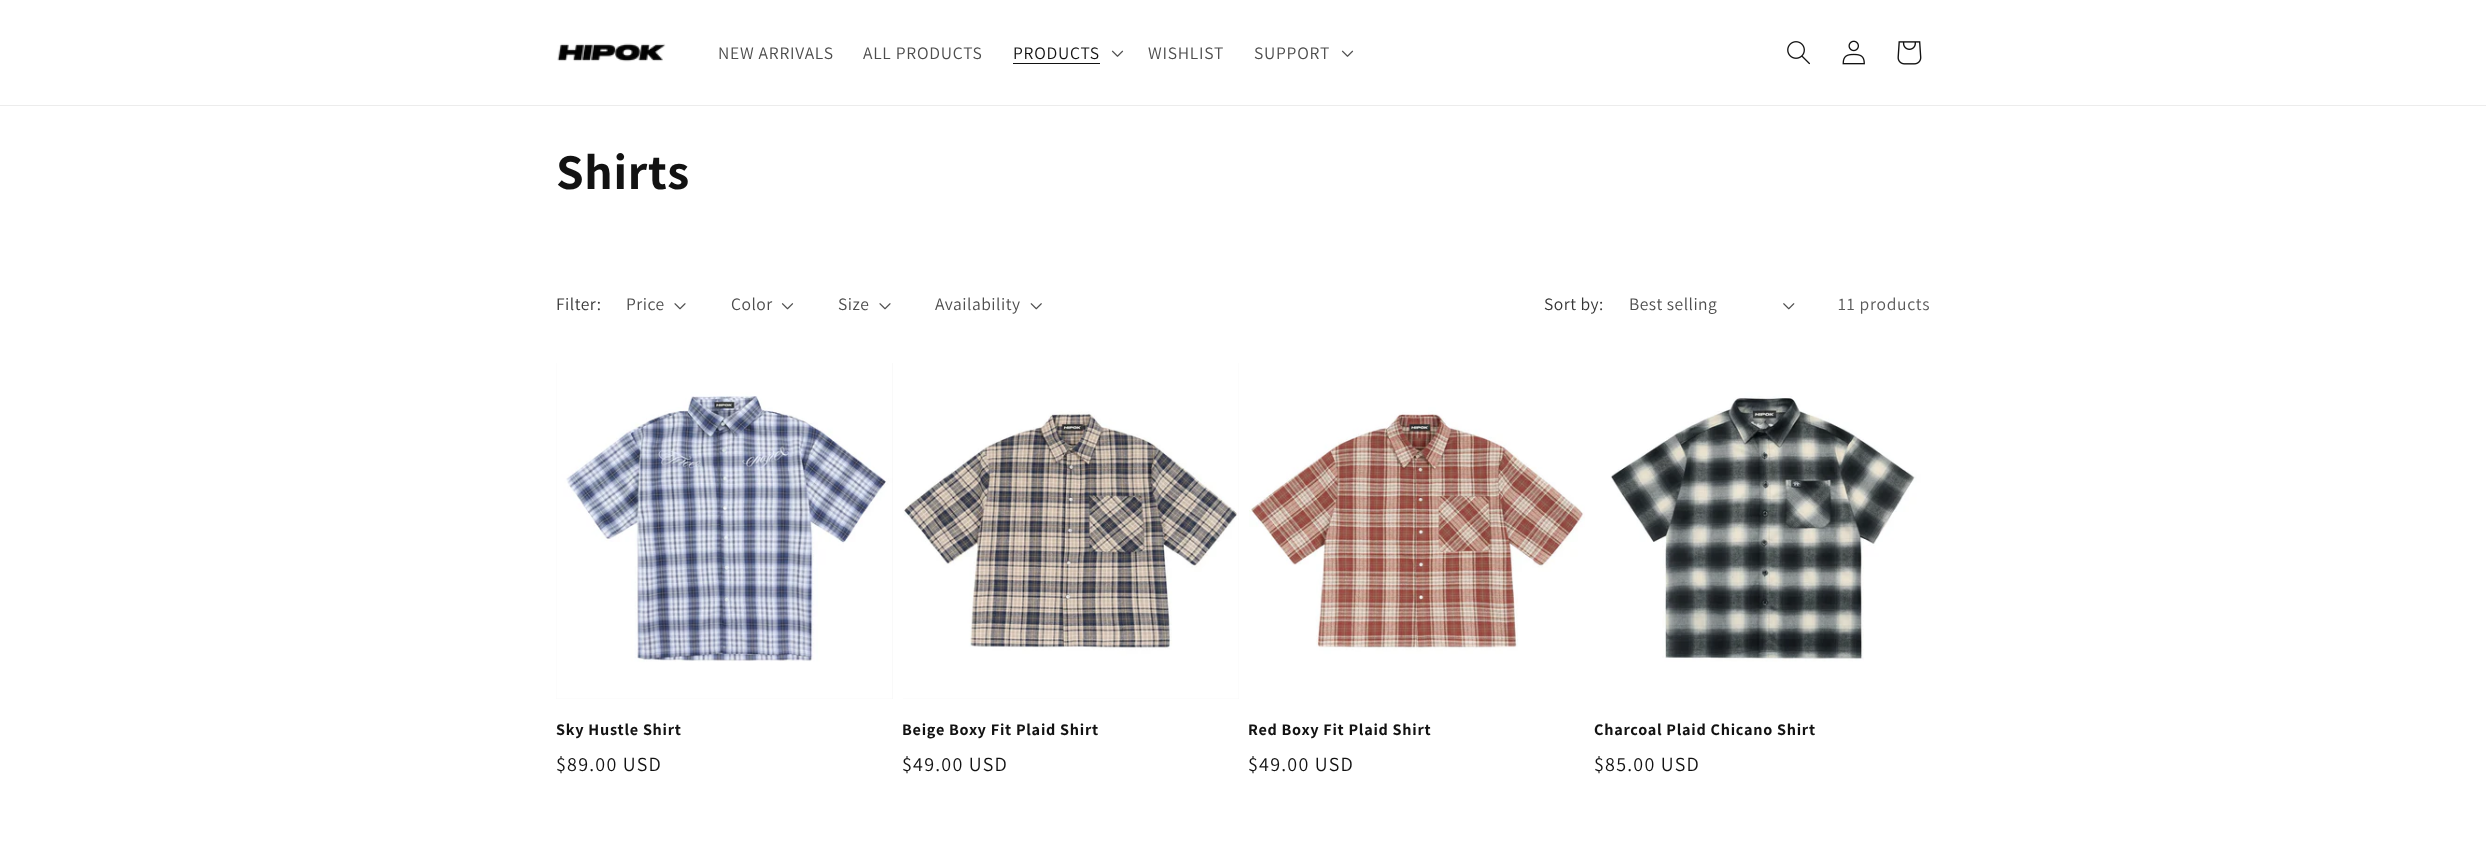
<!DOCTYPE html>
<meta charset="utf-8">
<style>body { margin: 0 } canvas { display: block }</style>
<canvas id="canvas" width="2486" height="845"></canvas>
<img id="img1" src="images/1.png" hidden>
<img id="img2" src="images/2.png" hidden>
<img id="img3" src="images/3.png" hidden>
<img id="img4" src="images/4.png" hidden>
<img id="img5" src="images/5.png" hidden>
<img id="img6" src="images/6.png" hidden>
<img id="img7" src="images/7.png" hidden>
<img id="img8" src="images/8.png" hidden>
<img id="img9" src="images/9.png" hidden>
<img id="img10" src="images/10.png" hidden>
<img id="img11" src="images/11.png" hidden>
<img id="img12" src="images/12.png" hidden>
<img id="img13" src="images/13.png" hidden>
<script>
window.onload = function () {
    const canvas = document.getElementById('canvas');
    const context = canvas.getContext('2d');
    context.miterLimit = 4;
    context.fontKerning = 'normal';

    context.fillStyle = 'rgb(255, 255, 255)';
    context.fillRect(0, 0, 2486, 845);
    context.fillStyle = 'rgb(236, 236, 236)';
    context.fillRect(0, 105, 2486, 1);
    context.drawImage(document.getElementById('img1'), 557, 43, 109, 19);
    context.fillStyle = 'rgb(18, 18, 18)';
    context.fillRect(1013, 63, 87, 1);
    context.drawImage(document.getElementById('img2'), 1111, 50, 13, 7);
    context.drawImage(document.getElementById('img2'), 1341, 50, 13, 7);
    context.drawImage(document.getElementById('img3'), 1787, 41, 23, 24);
    context.drawImage(document.getElementById('img4'), 1842, 40, 23, 25);
    context.drawImage(document.getElementById('img5'), 1897, 41, 25, 24);
    context.drawImage(document.getElementById('img6'), 674, 303, 12, 7);
    context.drawImage(document.getElementById('img7'), 781, 303, 13, 7);
    context.drawImage(document.getElementById('img6'), 879, 303, 12, 7);
    context.drawImage(document.getElementById('img8'), 1030, 303, 12, 7);
    context.drawImage(document.getElementById('img9'), 1783, 303, 12, 7);
    context.fillStyle = 'rgb(243, 243, 243)';
    context.fillRect(556, 363, 337, 336);
    context.drawImage(document.getElementById('img10'), 556, 363, 337, 336);
    context.fillRect(903, 363, 336, 336);
    context.drawImage(document.getElementById('img11'), 903, 363, 336, 336);
    context.drawImage(document.getElementById('img12'), 1249, 363, 336, 336);
    context.drawImage(document.getElementById('img13'), 1595, 363, 336, 336);
    context.letterSpacing = '0.75px';
    context.font = '17.5px Assistant';
    context.fillStyle = 'rgb(77, 77, 77)';
    context.fillText('NEW ARRIVALS', 718, 59);
    context.fillText('ALL PRODUCTS', 863, 59);
    context.fillStyle = 'rgb(18, 18, 18)';
    context.fillText('PRODUCTS', 1013, 59);
    context.fillStyle = 'rgb(77, 77, 77)';
    context.fillText('WISHLIST', 1148, 59);
    context.fillText('SUPPORT', 1254, 59);
    context.font = 'bold 50px Assistant';
    context.fillStyle = 'rgb(18, 18, 18)';
    context.fillText('Shirts', 556, 189);
    context.letterSpacing = '0.5px';
    context.font = '17.5px Assistant';
    context.fillStyle = 'rgb(54, 54, 54)';
    context.fillText('Filter:', 556, 310);
    context.fillStyle = 'rgb(77, 77, 77)';
    context.fillText('Price', 626, 310);
    context.fillText('Color', 731, 310);
    context.fillText('Size', 838, 310);
    context.fillText('Availability', 935, 310);
    context.fillStyle = 'rgb(54, 54, 54)';
    context.fillText('Sort by:', 1544, 310);
    context.fillStyle = 'rgb(77, 77, 77)';
    context.fillText('Best selling', 1629, 310);
    context.letterSpacing = '0.75px';
    context.fillStyle = 'rgb(89, 89, 89)';
    context.fillText('11 products', 1838, 310);
    context.font = 'bold 16.25px Assistant';
    context.fillStyle = 'rgb(18, 18, 18)';
    context.fillText('Sky Hustle Shirt', 556, 735);
    context.letterSpacing = '1.25px';
    context.font = '20px Assistant';
    context.fillText('$89.00 USD', 556, 771);
    context.letterSpacing = '0.75px';
    context.font = 'bold 16.25px Assistant';
    context.fillText('Beige Boxy Fit Plaid Shirt', 902, 735);
    context.letterSpacing = '1.25px';
    context.font = '20px Assistant';
    context.fillText('$49.00 USD', 902, 771);
    context.letterSpacing = '0.75px';
    context.font = 'bold 16.25px Assistant';
    context.fillText('Red Boxy Fit Plaid Shirt', 1248, 735);
    context.letterSpacing = '1.25px';
    context.font = '20px Assistant';
    context.fillText('$49.00 USD', 1248, 771);
    context.letterSpacing = '0.75px';
    context.font = 'bold 16.25px Assistant';
    context.fillText('Charcoal Plaid Chicano Shirt', 1594, 735);
    context.letterSpacing = '1.25px';
    context.font = '20px Assistant';
    context.fillText('$85.00 USD', 1594, 771);
};
</script>
